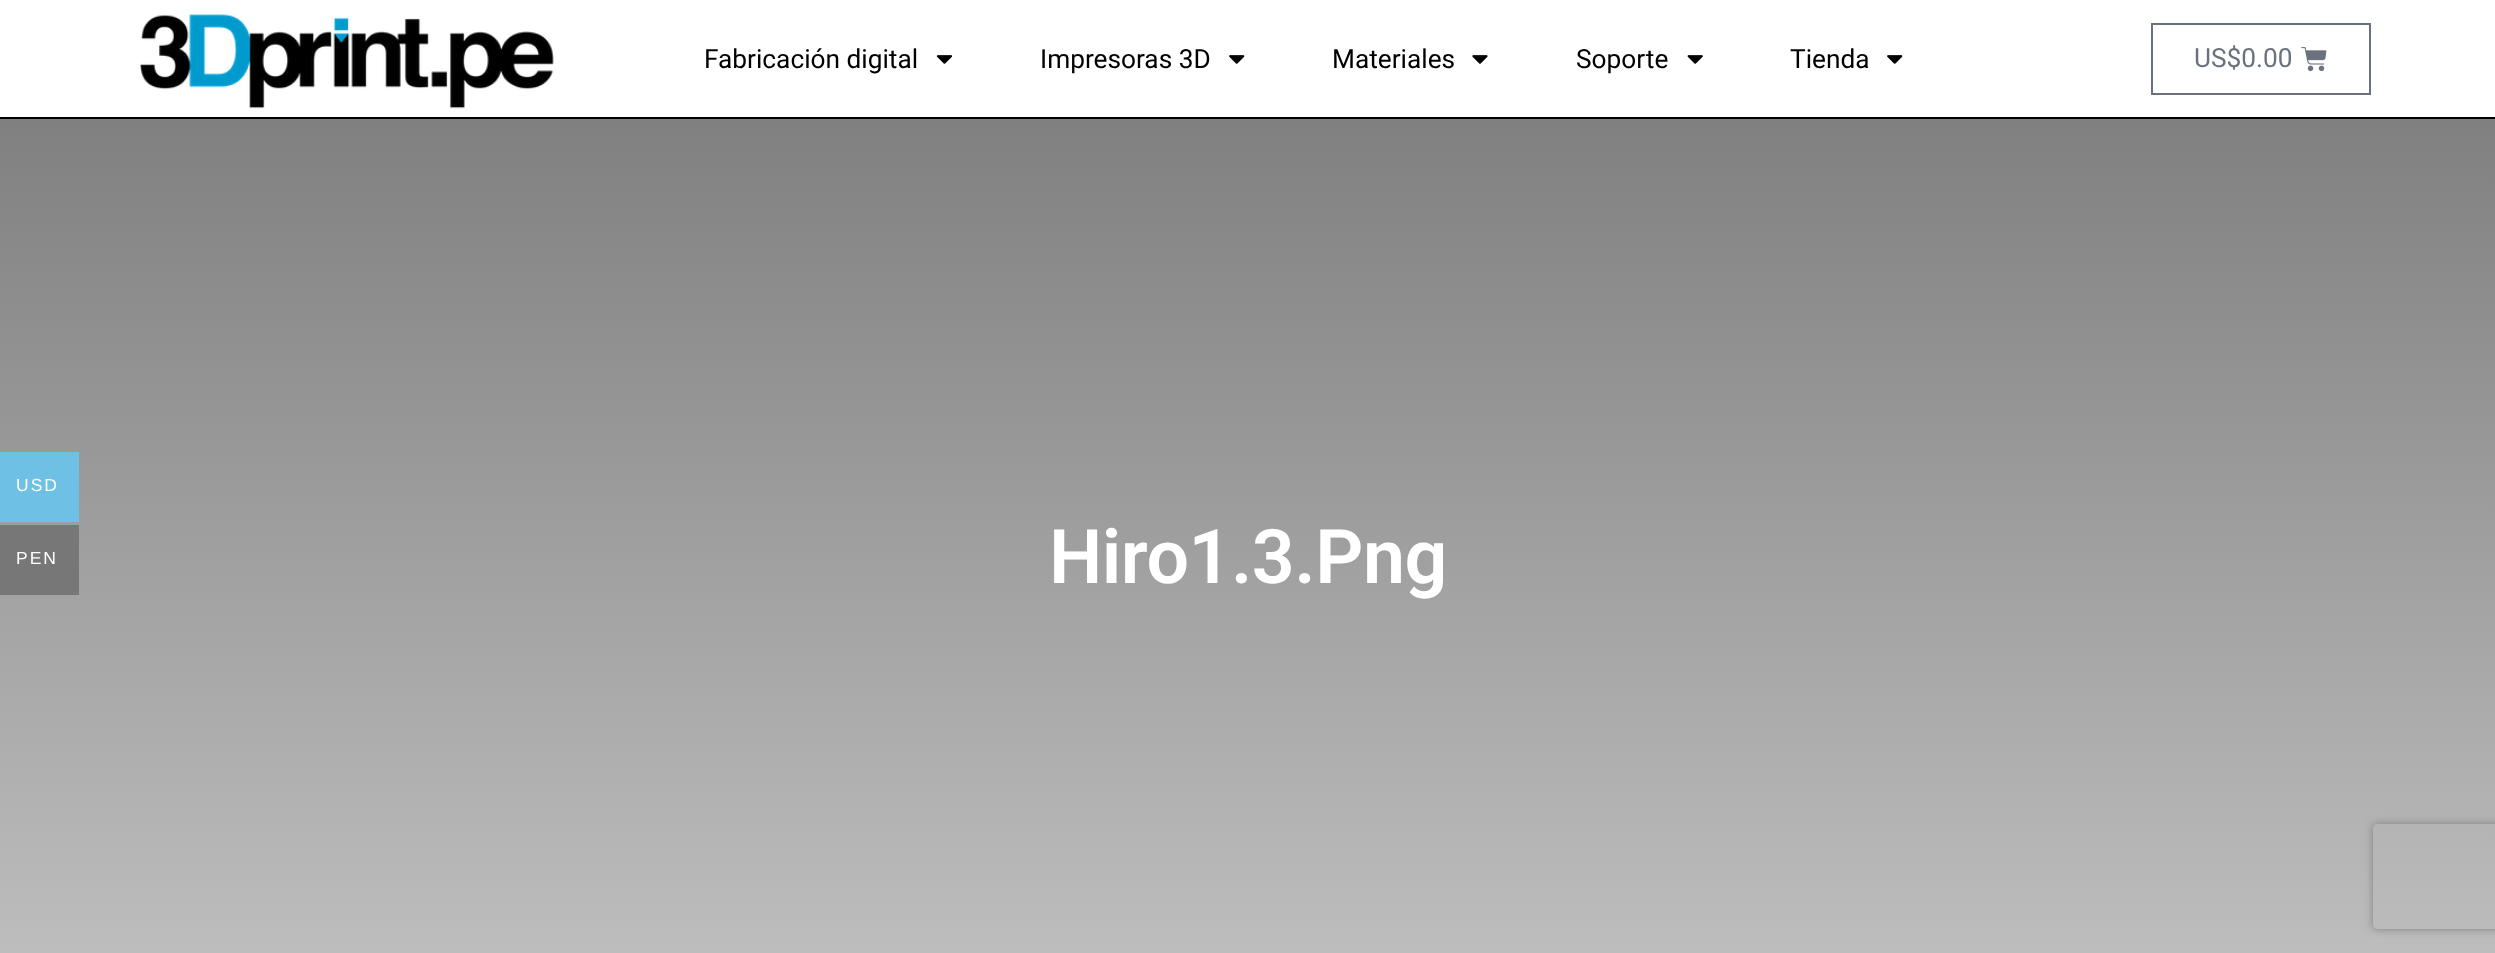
<!DOCTYPE html>
<meta charset="utf-8">
<style>body { margin: 0 } canvas { display: block }</style>
<canvas id="canvas" width="2495" height="953"></canvas>
<img id="img1" src="images/1.png" hidden>
<img id="img2" src="images/2.png" hidden>
<img id="img3" src="images/3.png" hidden>
<img id="img4" src="images/4.png" hidden>
<img id="img5" src="images/5.png" hidden>
<img id="img6" src="images/6.png" hidden>
<script>
window.onload = function () {
    const canvas = document.getElementById('canvas');
    const context = canvas.getContext('2d');
    context.miterLimit = 4;
    context.fontKerning = 'normal';
    let gradient;

    context.fillStyle = 'rgb(255, 255, 255)';
    context.fillRect(0, 0, 2495, 953);
    context.fillStyle = 'rgb(0, 0, 0)';
    context.fillRect(0, 117, 2495, 2);
    context.drawImage(document.getElementById('img1'), 140, 14, 414, 95);
    context.drawImage(document.getElementById('img2'), 936, 55, 16, 9);
    context.drawImage(document.getElementById('img3'), 1229, 55, 16, 9);
    context.drawImage(document.getElementById('img4'), 1472, 55, 16, 9);
    context.drawImage(document.getElementById('img5'), 1687, 55, 16, 9);
    context.drawImage(document.getElementById('img3'), 1887, 55, 16, 9);
    context.strokeStyle = 'rgb(105, 114, 125)';
    context.lineWidth = 2;
    context.strokeRect(2152, 24, 218, 70);
    context.drawImage(document.getElementById('img6'), 2301, 47, 26, 25);
    gradient = context.createLinearGradient(1248, 119, 1248, 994);
    gradient.addColorStop(0, 'rgb(128, 128, 128)');
    gradient.addColorStop(1, 'rgb(192, 192, 192)');
    context.fillStyle = gradient;
    context.fillRect(0, 119, 2495, 834);
    context.fillStyle = 'rgb(110, 193, 228)';
    context.fillRect(0, 452, 79, 70);
    context.fillStyle = 'rgb(119, 119, 119)';
    context.fillRect(0, 525, 79, 70);
    context.save();
    context.beginPath();
    context.moveTo(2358, 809);
    context.lineTo(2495, 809);
    context.lineTo(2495, 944);
    context.lineTo(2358, 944);
    context.closePath();
    context.moveTo(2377, 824);
    context.lineTo(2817, 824);
    context.bezierCurveTo(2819, 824, 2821, 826, 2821, 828);
    context.lineTo(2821, 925);
    context.bezierCurveTo(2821, 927, 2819, 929, 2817, 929);
    context.lineTo(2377, 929);
    context.bezierCurveTo(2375, 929, 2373, 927, 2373, 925);
    context.lineTo(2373, 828);
    context.bezierCurveTo(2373, 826, 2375, 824, 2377, 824);
    context.closePath();
    context.clip('evenodd');
    context.fillStyle = 'rgb(128, 128, 128)';
    context.filter = 'blur(4.5px)';
    context.beginPath();
    context.roundRect(2373, 824, 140, 105, 4);
    context.fill();
    context.filter = 'none';
    context.restore();
    context.font = '26.25px Roboto';
    context.fillStyle = 'rgb(0, 0, 0)';
    context.fillText('Fabricación digital', 704, 68);
    context.fillText('Impresoras 3D', 1040, 68);
    context.fillText('Materiales', 1332, 68);
    context.fillText('Soporte', 1576, 68);
    context.fillText('Tienda', 1790, 68);
    context.fillStyle = 'rgb(105, 114, 125)';
    context.fillText('US$0.00', 2194, 67);
    context.letterSpacing = '2px';
    context.font = '17.5px Liberation Sans';
    context.fillStyle = 'rgb(255, 255, 255)';
    context.fillText('USD', 16, 491);
    context.fillText('PEN', 16, 564);
    context.letterSpacing = '-0.5px';
    context.font = '600 75.25px Roboto';
    context.fillText('Hiro1.3.Png', 1049, 583);
};
</script>
